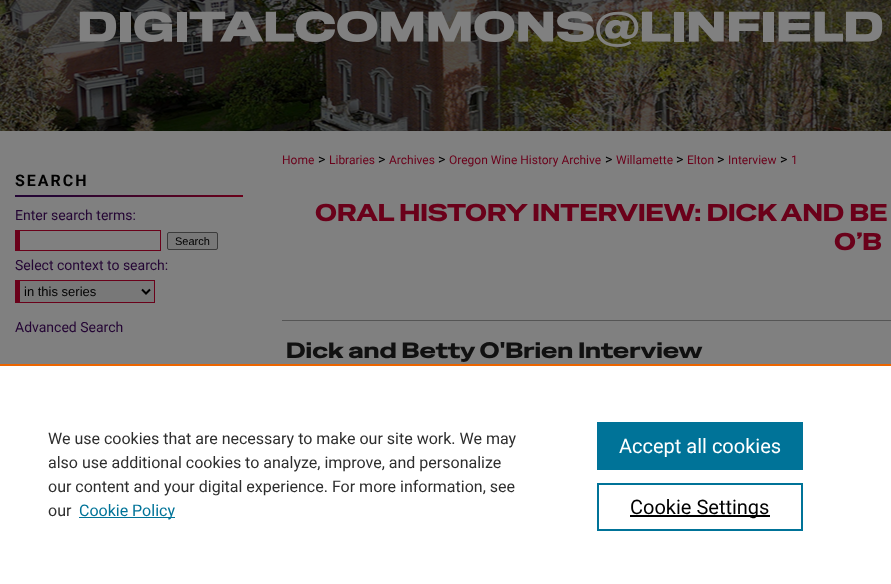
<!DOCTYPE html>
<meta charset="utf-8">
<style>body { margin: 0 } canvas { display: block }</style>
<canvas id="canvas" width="891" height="584"></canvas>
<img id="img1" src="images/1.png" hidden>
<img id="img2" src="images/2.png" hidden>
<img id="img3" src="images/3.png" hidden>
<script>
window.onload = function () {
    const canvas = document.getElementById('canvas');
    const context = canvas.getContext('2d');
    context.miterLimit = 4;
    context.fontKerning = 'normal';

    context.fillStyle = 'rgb(128, 128, 128)';
    context.fillRect(0, 0, 891, 584);
    context.drawImage(document.getElementById('img1'), 0, 0, 891, 131);
    context.drawImage(document.getElementById('img2'), 79, 11, 804, 36);
    context.drawImage(document.getElementById('img3'), 15, 195, 228, 2);
    context.fillStyle = 'rgb(106, 1, 26)';
    context.fillRect(15, 230, 146, 1);
    context.fillRect(160, 230, 1, 21);
    context.fillRect(15, 250, 146, 1);
    context.fillRect(15, 230, 5, 21);
    context.fillStyle = 'rgb(120, 120, 120)';
    context.beginPath();
    context.roundRect(167.5, 232.5, 50, 17, 1.5);
    context.fill();
    context.strokeStyle = 'rgb(59, 59, 59)';
    context.stroke();
    context.fillRect(20, 281, 134, 21);
    context.fillStyle = 'rgb(106, 1, 26)';
    context.fillRect(15, 280, 140, 1);
    context.fillRect(154, 280, 1, 23);
    context.fillRect(15, 302, 140, 1);
    context.fillRect(15, 280, 5, 23);
    context.beginPath();
    context.moveTo(142, 289.5);
    context.lineTo(146, 293.5);
    context.lineTo(150, 289.5);
    context.strokeStyle = 'rgb(0, 0, 0)';
    context.lineWidth = 2;
    context.stroke();
    context.fillStyle = 'rgb(85, 85, 85)';
    context.fillRect(282, 320, 609, 1);
    context.fillStyle = 'rgb(255, 255, 255)';
    context.fillRect(0, 366, 891, 218);
    context.fillStyle = 'rgb(235, 101, 0)';
    context.fillRect(0, 364, 891, 2);
    context.fillStyle = 'rgb(0, 115, 152)';
    context.fillRect(79, 517, 96, 1);
    context.fillRect(597, 422, 206, 48);
    context.strokeStyle = 'rgb(0, 115, 152)';
    context.strokeRect(598, 484, 204, 46);
    context.fillStyle = 'rgb(0, 0, 0)';
    context.fillRect(630, 515, 140, 2);
    context.letterSpacing = '2px';
    context.font = 'bold 16px Roboto';
    context.fillText('SEARCH', 15, 186);
    context.letterSpacing = '0px';
    context.font = '14px Roboto';
    context.fillStyle = 'rgb(36, 5, 52)';
    context.fillText('Enter search terms:', 15, 220);
    context.font = '11px Liberation Sans';
    context.fillStyle = 'rgb(0, 0, 0)';
    context.fillText('Search', 175, 245);
    context.font = '14px Roboto';
    context.fillStyle = 'rgb(36, 5, 52)';
    context.fillText('Select context to search:', 15, 270);
    context.font = '13px Liberation Sans';
    context.fillStyle = 'rgb(0, 0, 0)';
    context.fillText('in this series', 24, 296);
    context.font = '14px Roboto';
    context.fillStyle = 'rgb(36, 5, 52)';
    context.fillText('Advanced Search', 15, 332);
    context.font = '12px Roboto';
    context.fillStyle = 'rgb(106, 1, 26)';
    context.fillText('Home', 282, 164);
    context.font = '14px Roboto';
    context.fillStyle = 'rgb(0, 0, 0)';
    context.fillText('>', 318, 164);
    context.font = '12px Roboto';
    context.fillStyle = 'rgb(106, 1, 26)';
    context.fillText('Libraries', 329, 164);
    context.font = '14px Roboto';
    context.fillStyle = 'rgb(0, 0, 0)';
    context.fillText('>', 378, 164);
    context.font = '12px Roboto';
    context.fillStyle = 'rgb(106, 1, 26)';
    context.fillText('Archives', 389, 164);
    context.font = '14px Roboto';
    context.fillStyle = 'rgb(0, 0, 0)';
    context.fillText('>', 438, 164);
    context.font = '12px Roboto';
    context.fillStyle = 'rgb(106, 1, 26)';
    context.fillText('Oregon Wine History Archive', 449, 164);
    context.font = '14px Roboto';
    context.fillStyle = 'rgb(0, 0, 0)';
    context.fillText('>', 605, 164);
    context.font = '12px Roboto';
    context.fillStyle = 'rgb(106, 1, 26)';
    context.fillText('Willamette', 616, 164);
    context.font = '14px Roboto';
    context.fillStyle = 'rgb(0, 0, 0)';
    context.fillText('>', 676, 164);
    context.font = '12px Roboto';
    context.fillStyle = 'rgb(106, 1, 26)';
    context.fillText('Elton', 687, 164);
    context.font = '14px Roboto';
    context.fillStyle = 'rgb(0, 0, 0)';
    context.fillText('>', 717, 164);
    context.font = '12px Roboto';
    context.fillStyle = 'rgb(106, 1, 26)';
    context.fillText('Interview', 728, 164);
    context.font = '14px Roboto';
    context.fillStyle = 'rgb(0, 0, 0)';
    context.fillText('>', 780, 164);
    context.font = '12px Roboto';
    context.fillStyle = 'rgb(106, 1, 26)';
    context.fillText('1', 791, 164);
    context.font = '24px Special Gothic Expanded One';
    context.fillText('ORAL HISTORY INTERVIEW: DICK AND BE', 315, 221);
    context.fillText('O’B', 834, 250);
    context.font = '22px Special Gothic Expanded One';
    context.fillStyle = 'rgb(17, 17, 17)';
    context.fillText('Dick and Betty O\'Brien Interview', 286, 358);
    context.font = '16px Roboto';
    context.fillStyle = 'rgb(46, 46, 46)';
    context.fillText('We use cookies that are necessary to make our site work. We may', 48, 444);
    context.fillText('also use additional cookies to analyze, improve, and personalize', 48, 468);
    context.fillText('our content and your digital experience. For more information, see', 48, 492);
    context.fillText('our', 48, 516);
    context.fillStyle = 'rgb(0, 115, 152)';
    context.fillText('Cookie Policy', 79, 516);
    context.font = '20px Roboto';
    context.fillStyle = 'rgb(255, 255, 255)';
    context.fillText('Accept all cookies', 619, 453);
    context.fillStyle = 'rgb(0, 0, 0)';
    context.fillText('Cookie Settings', 630, 514);
};
</script>
